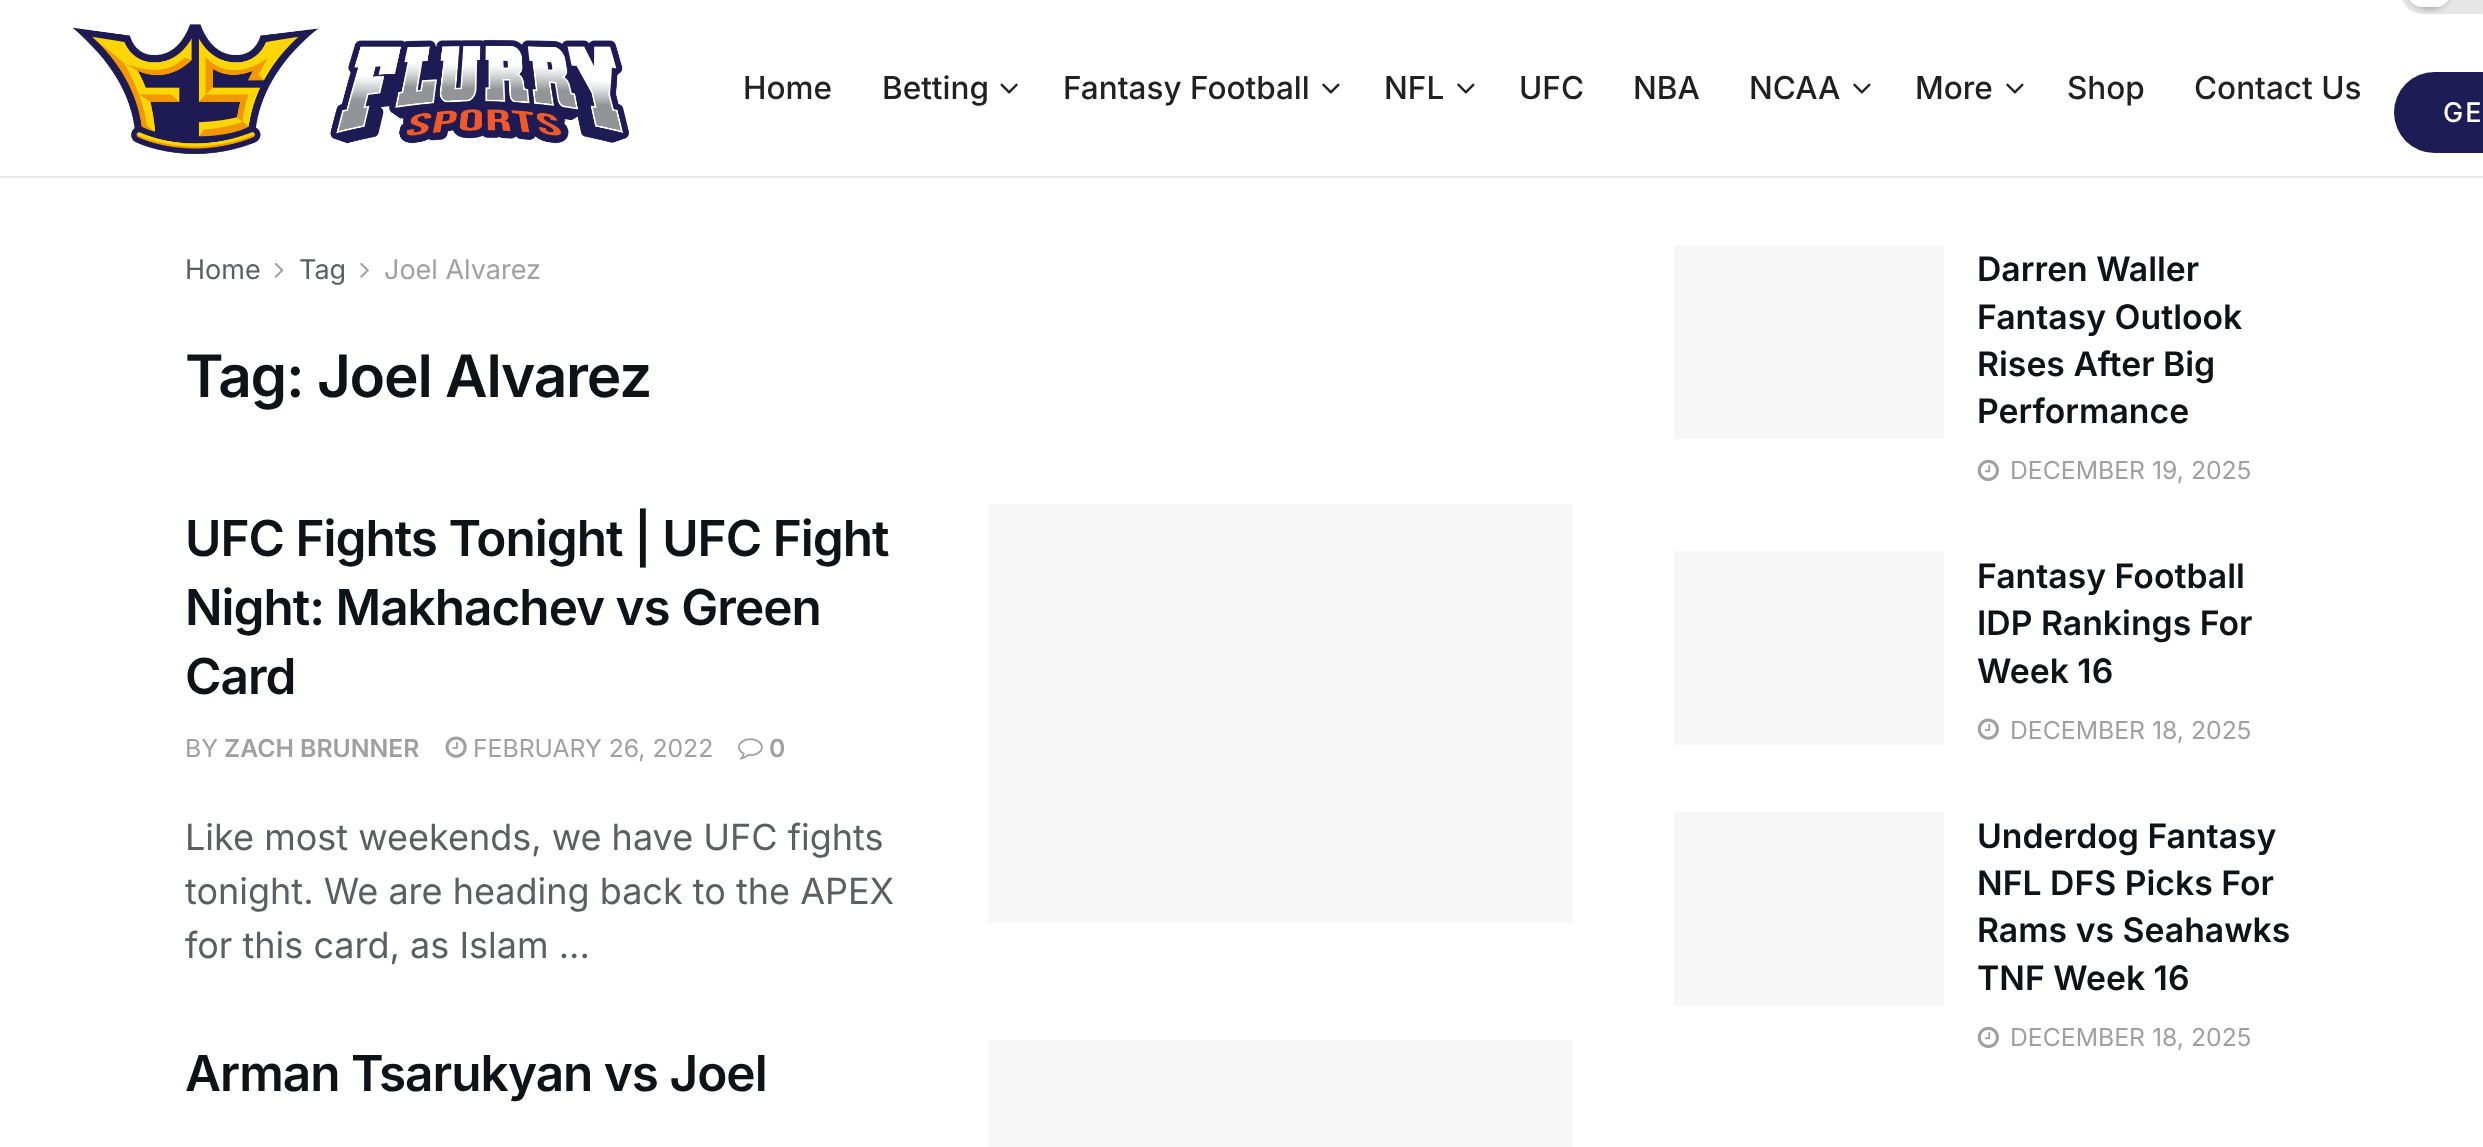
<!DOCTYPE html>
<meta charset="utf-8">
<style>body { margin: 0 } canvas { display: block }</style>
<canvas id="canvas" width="2483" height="1147"></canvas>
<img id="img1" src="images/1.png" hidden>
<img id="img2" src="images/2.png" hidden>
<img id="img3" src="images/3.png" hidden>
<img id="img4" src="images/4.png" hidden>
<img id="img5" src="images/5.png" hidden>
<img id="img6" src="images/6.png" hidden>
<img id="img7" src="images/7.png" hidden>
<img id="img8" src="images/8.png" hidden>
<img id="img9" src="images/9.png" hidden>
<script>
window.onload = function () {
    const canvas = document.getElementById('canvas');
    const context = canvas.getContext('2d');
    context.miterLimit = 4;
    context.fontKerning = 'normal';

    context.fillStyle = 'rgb(255, 255, 255)';
    context.fillRect(0, 0, 2483, 1147);
    context.fillStyle = 'rgb(232, 232, 232)';
    context.fillRect(0, 176, 2483, 2);
    context.drawImage(document.getElementById('img1'), 72, 24, 557, 130);
    context.drawImage(document.getElementById('img2'), 1000, 83, 18, 11);
    context.drawImage(document.getElementById('img3'), 1322, 83, 18, 11);
    context.drawImage(document.getElementById('img3'), 1457, 83, 18, 11);
    context.drawImage(document.getElementById('img3'), 1853, 83, 18, 11);
    context.drawImage(document.getElementById('img3'), 2006, 83, 18, 11);
    context.fillStyle = 'rgb(230, 230, 230)';
    context.beginPath();
    context.roundRect(2401, -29, 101, 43, 28.5);
    context.fill();
    context.fillStyle = 'rgba(0, 0, 0, 0.3)';
    context.filter = 'blur(3.5px)';
    context.beginPath();
    context.roundRect(2408, -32, 42, 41, 21);
    context.fill();
    context.filter = 'none';
    context.fillStyle = 'rgb(255, 255, 255)';
    context.beginPath();
    context.roundRect(2408, -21, 42, 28, 21);
    context.fill();
    context.fillStyle = 'rgb(30, 28, 85)';
    context.beginPath();
    context.roundRect(2394, 72, 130, 81, 40.5);
    context.fill();
    context.drawImage(document.getElementById('img4'), 274, 262, 10, 16);
    context.drawImage(document.getElementById('img5'), 360, 262, 9, 16);
    context.drawImage(document.getElementById('img6'), 445, 736, 22, 22);
    context.drawImage(document.getElementById('img7'), 738, 738, 25, 22);
    context.fillStyle = 'rgb(247, 247, 247)';
    context.fillRect(988, 504, 585, 419);
    context.fillRect(988, 1040, 585, 107);
    context.fillRect(1674, 245, 270, 194);
    context.drawImage(document.getElementById('img8'), 1977, 459, 22, 22);
    context.fillRect(1674, 551, 270, 194);
    context.drawImage(document.getElementById('img9'), 1977, 718, 22, 22);
    context.fillRect(1674, 812, 270, 194);
    context.drawImage(document.getElementById('img8'), 1977, 1026, 22, 22);
    context.font = '500 31.5px Inter';
    context.fillStyle = 'rgb(33, 33, 33)';
    context.fillText('Home', 743, 99);
    context.fillText('Betting', 882, 99);
    context.fillText('Fantasy Football', 1063, 99);
    context.fillText('NFL', 1384, 99);
    context.fillText('UFC', 1519, 99);
    context.fillText('NBA', 1633, 99);
    context.fillText('NCAA', 1749, 99);
    context.fillText('More', 1915, 99);
    context.fillText('Shop', 2067, 99);
    context.fillText('Contact Us', 2194, 99);
    context.letterSpacing = '2px';
    context.font = '500 27px Inter';
    context.fillStyle = 'rgb(255, 255, 255)';
    context.fillText('GE', 2443, 122);
    context.letterSpacing = '0px';
    context.font = '27px Inter';
    context.fillStyle = 'rgb(91, 95, 98)';
    context.fillText('Home', 185, 279);
    context.fillText('Tag', 299, 279);
    context.fillStyle = 'rgb(160, 160, 160)';
    context.fillText('Joel Alvarez', 384, 279);
    context.letterSpacing = '-1.2px';
    context.font = '600 58.5px Inter';
    context.fillStyle = 'rgb(13, 19, 23)';
    context.fillText('Tag: Joel Alvarez', 185, 397);
    context.letterSpacing = '-1px';
    context.font = '600 49.5px Inter';
    context.fillText('UFC Fights Tonight | UFC Fight', 185, 556);
    context.fillText('Night: Makhachev vs Green', 185, 625);
    context.fillText('Card', 185, 694);
    context.letterSpacing = '0px';
    context.font = '24.75px Inter';
    context.fillStyle = 'rgb(160, 160, 160)';
    context.fillText('BY', 185, 757);
    context.font = '600 24.75px Inter';
    context.fillText('ZACH BRUNNER', 224, 757);
    context.font = '24.75px Inter';
    context.fillText('FEBRUARY 26, 2022', 473, 757);
    context.font = '600 24.75px Inter';
    context.fillText('0', 769, 757);
    context.font = '36px Inter';
    context.fillStyle = 'rgb(91, 95, 98)';
    context.fillText('Like most weekends, we have UFC fights', 185, 850);
    context.save();
    context.beginPath();
    context.rect(185, 504, 735, 468);
    context.clip();
    context.fillText('tonight. We are heading back to the APEX', 185, 904);
    context.fillText('for this card, as Islam ...', 185, 958);
    context.restore();
    context.letterSpacing = '-1px';
    context.font = '600 49.5px Inter';
    context.fillStyle = 'rgb(13, 19, 23)';
    context.fillText('Arman Tsarukyan vs Joel', 185, 1091);
    context.letterSpacing = '0px';
    context.font = '600 33.75px Inter';
    context.fillText('Darren Waller', 1977, 281);
    context.fillText('Fantasy Outlook', 1977, 329);
    context.fillText('Rises After Big', 1977, 376);
    context.fillText('Performance', 1977, 423);
    context.font = '24.75px Inter';
    context.fillStyle = 'rgb(160, 160, 160)';
    context.fillText('DECEMBER 19, 2025', 2010, 479);
    context.font = '600 33.75px Inter';
    context.fillStyle = 'rgb(13, 19, 23)';
    context.fillText('Fantasy Football', 1977, 588);
    context.fillText('IDP Rankings For', 1977, 635);
    context.fillText('Week 16', 1977, 683);
    context.font = '24.75px Inter';
    context.fillStyle = 'rgb(160, 160, 160)';
    context.fillText('DECEMBER 18, 2025', 2010, 739);
    context.font = '600 33.75px Inter';
    context.fillStyle = 'rgb(13, 19, 23)';
    context.fillText('Underdog Fantasy', 1977, 848);
    context.fillText('NFL DFS Picks For', 1977, 895);
    context.fillText('Rams vs Seahawks', 1977, 942);
    context.fillText('TNF Week 16', 1977, 990);
    context.font = '24.75px Inter';
    context.fillStyle = 'rgb(160, 160, 160)';
    context.fillText('DECEMBER 18, 2025', 2010, 1046);
};
</script>
